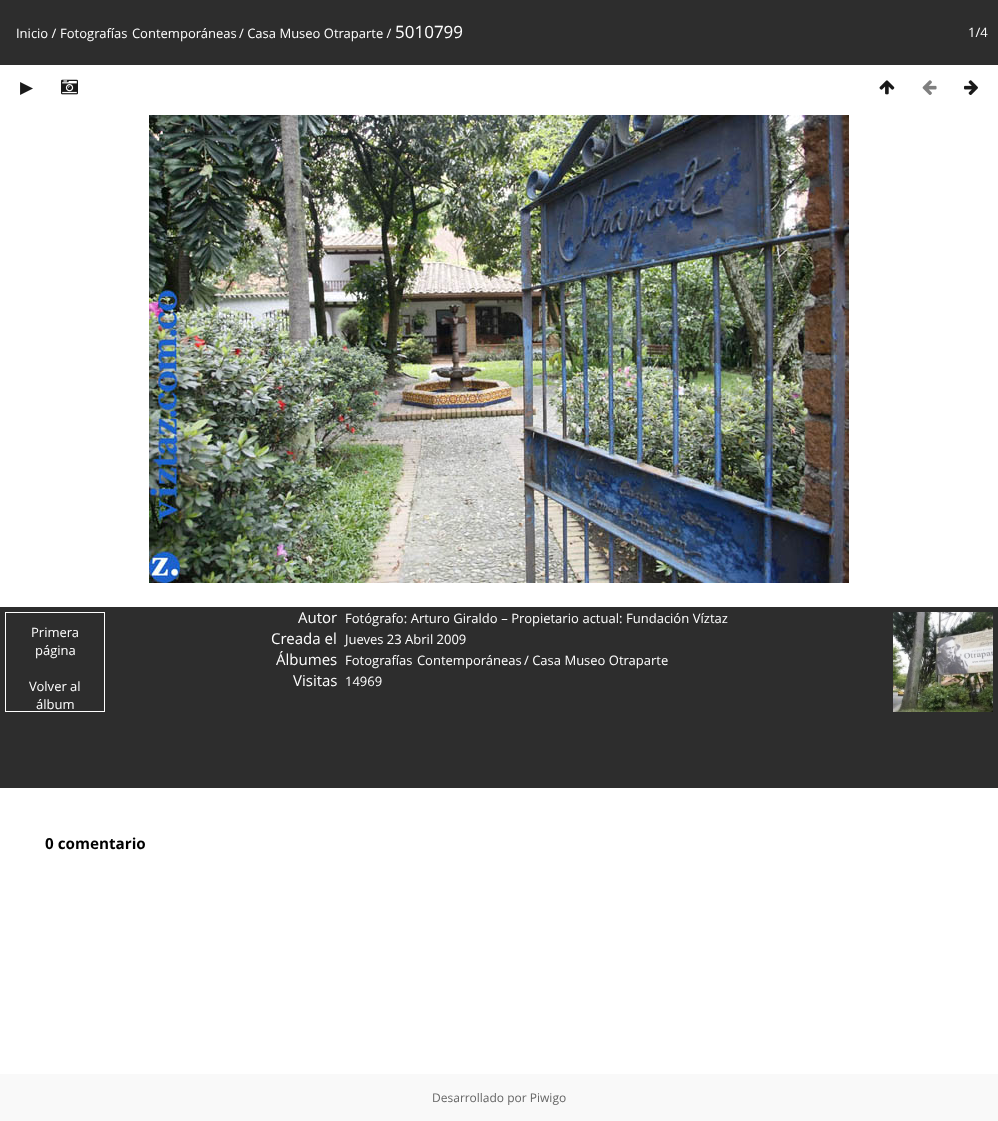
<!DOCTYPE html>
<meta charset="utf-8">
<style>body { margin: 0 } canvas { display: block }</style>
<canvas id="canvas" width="998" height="1121"></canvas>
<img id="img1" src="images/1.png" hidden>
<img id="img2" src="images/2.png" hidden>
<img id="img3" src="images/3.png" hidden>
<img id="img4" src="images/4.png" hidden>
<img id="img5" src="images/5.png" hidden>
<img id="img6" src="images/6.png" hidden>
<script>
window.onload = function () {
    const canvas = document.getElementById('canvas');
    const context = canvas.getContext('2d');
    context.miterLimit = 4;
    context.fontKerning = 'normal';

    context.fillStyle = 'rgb(255, 255, 255)';
    context.fillRect(0, 0, 998, 1121);
    context.fillStyle = 'rgb(45, 45, 45)';
    context.fillRect(0, 0, 998, 65);
    context.drawImage(document.getElementById('img1'), 61, 79, 17, 16);
    context.drawImage(document.getElementById('img2'), 879, 80, 16, 15);
    context.drawImage(document.getElementById('img3'), 922, 80, 15, 15);
    context.drawImage(document.getElementById('img4'), 964, 80, 14, 15);
    context.drawImage(document.getElementById('img5'), 149, 115, 700, 468);
    context.fillRect(0, 607, 998, 181);
    context.strokeStyle = 'rgb(255, 255, 255)';
    context.strokeRect(5.5, 612.5, 99, 99);
    context.drawImage(document.getElementById('img6'), 893, 612, 100, 100);
    context.fillStyle = 'rgb(249, 249, 249)';
    context.fillRect(0, 1074, 998, 47);
    context.font = '13px Open Sans';
    context.fillStyle = 'rgb(255, 255, 255)';
    context.fillText('Inicio /', 16, 38);
    context.wordSpacing = '1px';
    context.fillText('Fotografías Contemporáneas', 60, 38);
    context.wordSpacing = '0px';
    context.fillText('/ Casa Museo Otraparte /', 239, 38);
    context.font = '17px Open Sans';
    context.fillText('5010799', 395, 38);
    context.font = '13px Open Sans';
    context.fillText('1/4', 968, 37);
    context.font = '17px DejaVu Sans';
    context.fillStyle = 'rgb(26, 26, 26)';
    context.fillText('▶', 20, 93);
    context.font = '13px Open Sans';
    context.fillStyle = 'rgb(255, 255, 255)';
    context.fillText('Primera', 31, 637);
    context.fillText('página', 35, 655);
    context.fillText('Volver al', 29, 691);
    context.fillText('álbum', 36, 709);
    context.font = '15px Open Sans';
    context.fillText('Autor', 298, 623);
    context.wordSpacing = '0.25px';
    context.font = '13px Open Sans';
    context.fillText('Fotógrafo: Arturo Giraldo – Propietario actual: Fundación Víztaz', 345, 623);
    context.wordSpacing = '0px';
    context.font = '15px Open Sans';
    context.fillText('Creada el', 271, 644);
    context.font = '13px Open Sans';
    context.fillText('Jueves 23 Abril 2009', 345, 644);
    context.font = '15px Open Sans';
    context.fillText('Álbumes', 276, 665);
    context.wordSpacing = '1px';
    context.font = '13px Open Sans';
    context.fillText('Fotografías Contemporáneas', 345, 665);
    context.wordSpacing = '0px';
    context.fillText('/ Casa Museo Otraparte', 524, 665);
    context.font = '15px Open Sans';
    context.fillText('Visitas', 293, 686);
    context.font = '13px Open Sans';
    context.fillText('14969', 345, 686);
    context.font = 'bold 15.25px Open Sans';
    context.fillStyle = 'rgb(0, 0, 0)';
    context.fillText('0 comentario', 45, 849);
    context.font = '12px Open Sans';
    context.fillStyle = 'rgb(102, 102, 102)';
    context.fillText('Desarrollado por Piwigo', 432, 1102);
};
</script>
